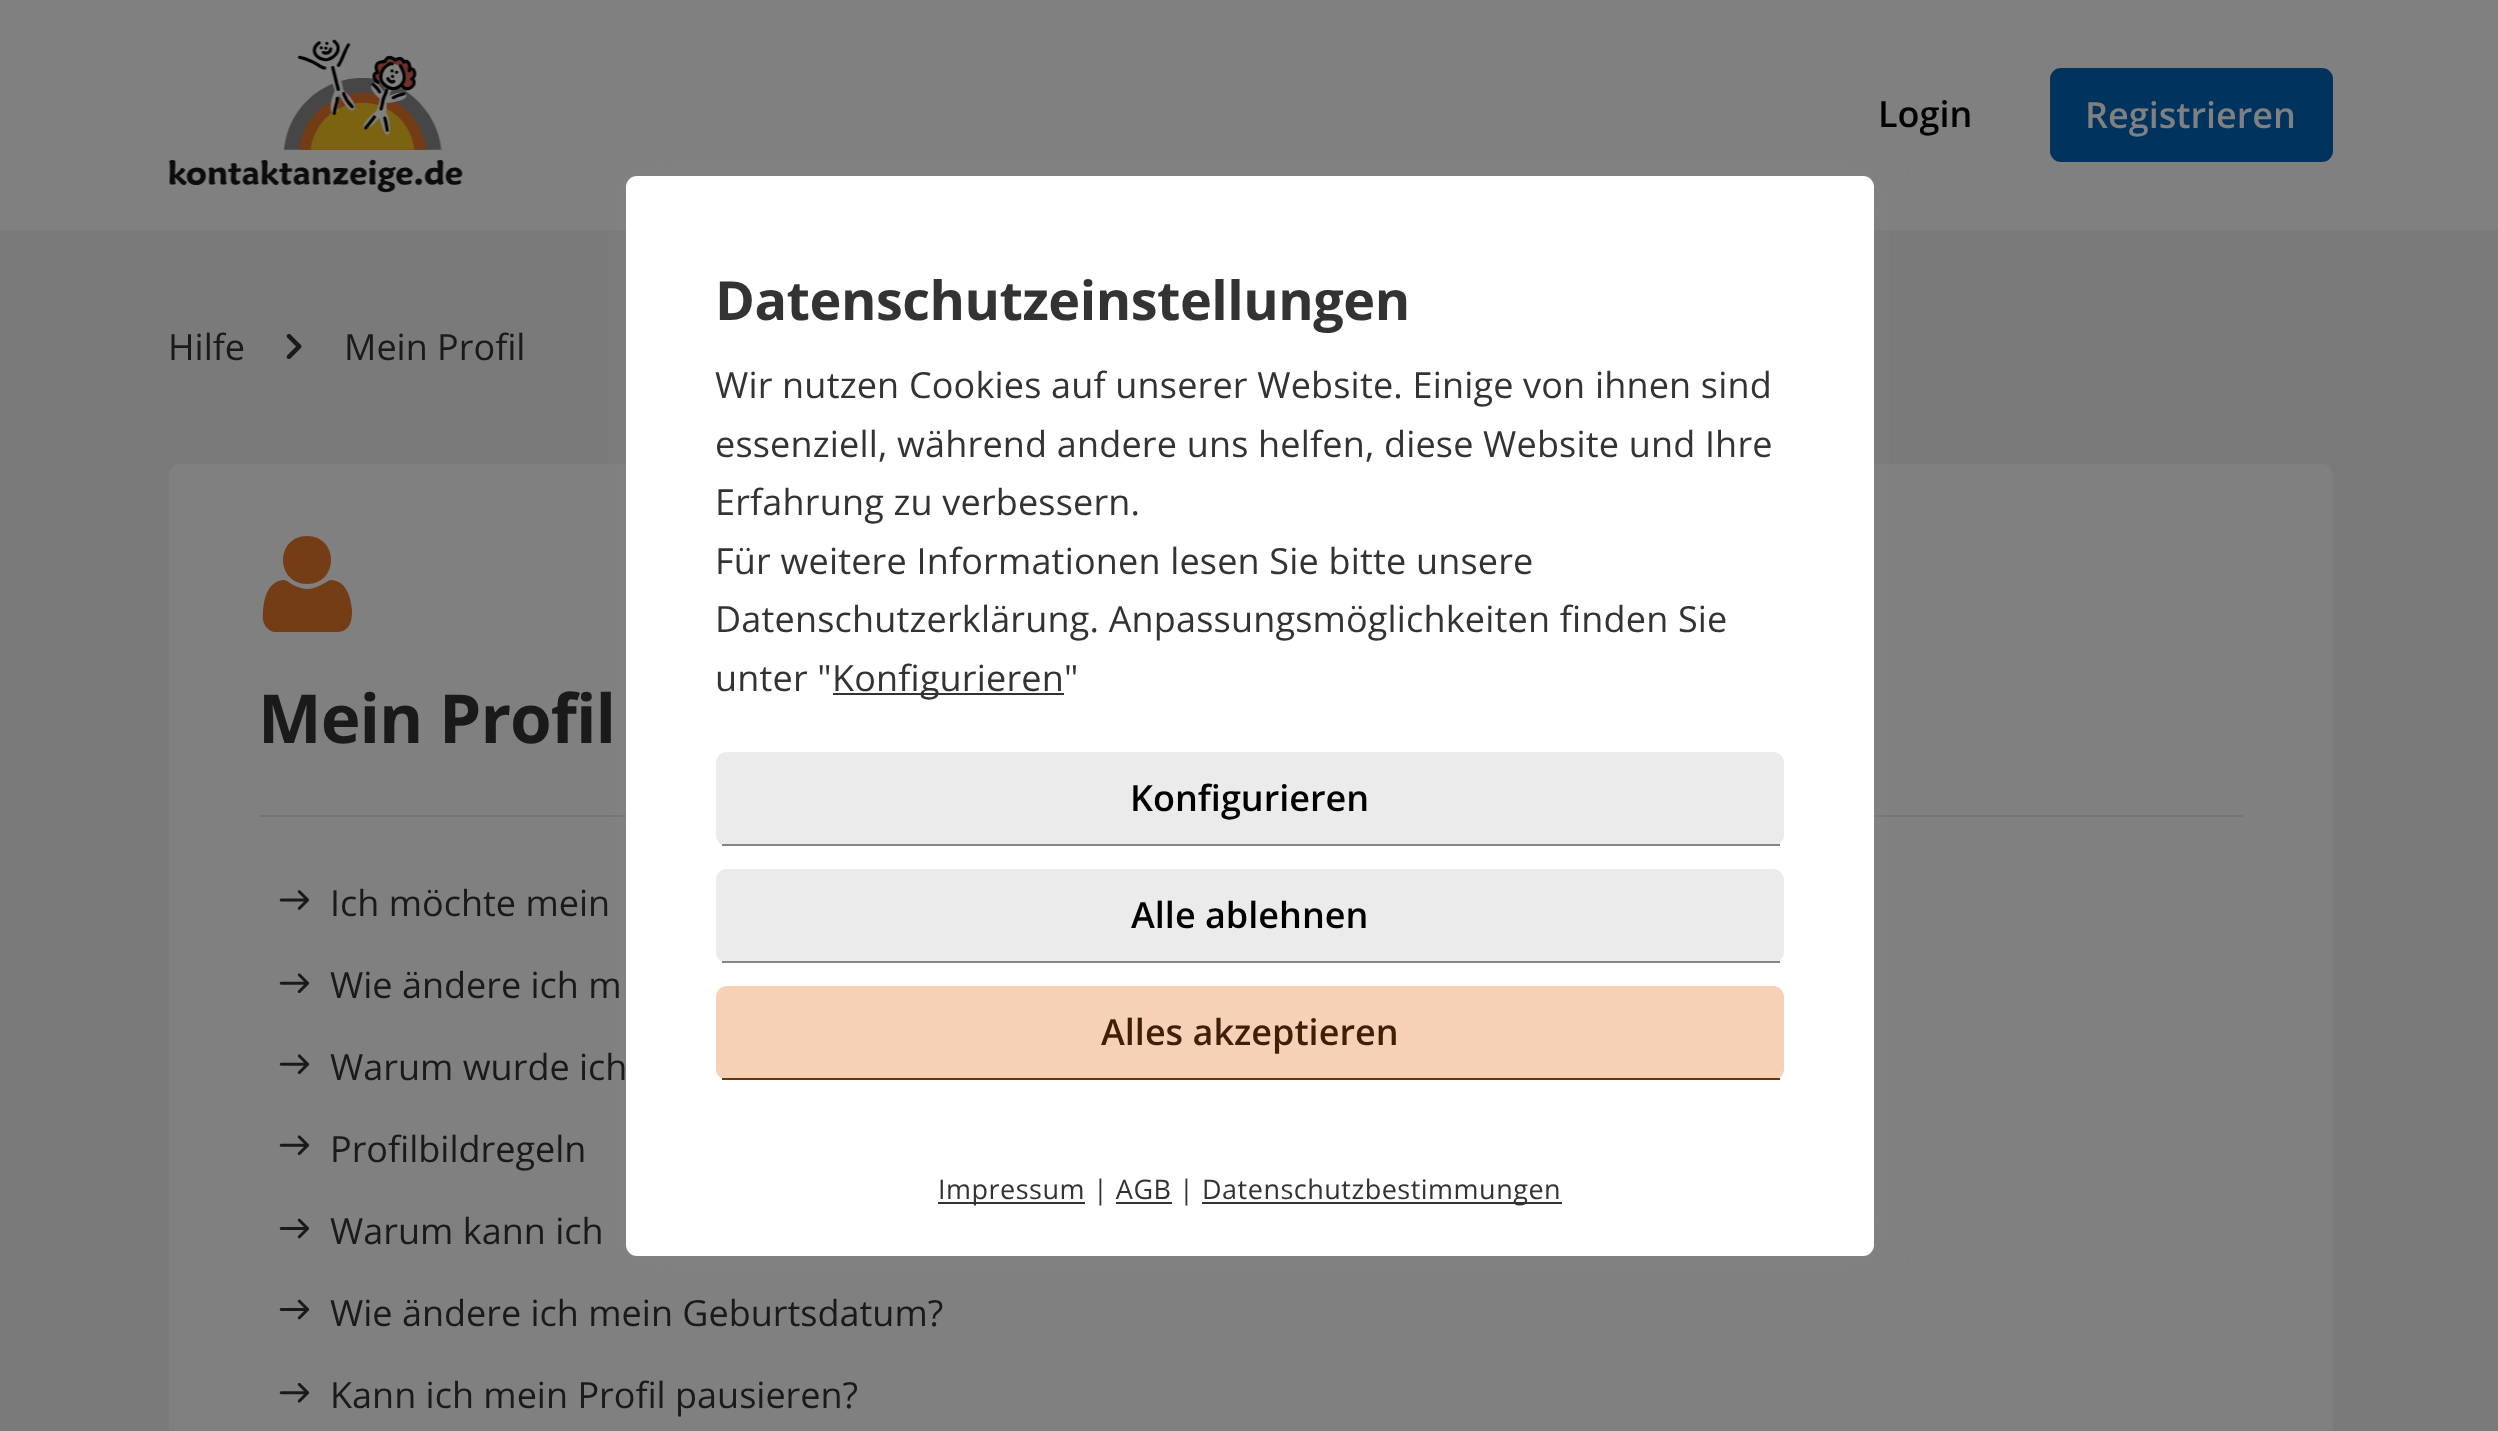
<!DOCTYPE html>
<meta charset="utf-8">
<style>body { margin: 0 } canvas { display: block }</style>
<canvas id="canvas" width="2498" height="1431"></canvas>
<img id="img1" src="images/1.png" hidden>
<img id="img2" src="images/2.png" hidden>
<img id="img3" src="images/3.png" hidden>
<img id="img4" src="images/4.png" hidden>
<img id="img5" src="images/5.png" hidden>
<img id="img6" src="images/6.png" hidden>
<script>
window.onload = function () {
    const canvas = document.getElementById('canvas');
    const context = canvas.getContext('2d');
    context.miterLimit = 4;
    context.fontKerning = 'normal';

    context.fillStyle = 'rgb(122, 122, 122)';
    context.fillRect(0, 0, 2498, 1431);
    context.fillStyle = 'rgb(128, 128, 128)';
    context.fillRect(0, 0, 2498, 230);
    context.drawImage(document.getElementById('img1'), 168, 39, 295, 154);
    context.fillStyle = 'rgb(0, 52, 94)';
    context.beginPath();
    context.roundRect(2050, 68, 283, 94, 11);
    context.fill();
    context.drawImage(document.getElementById('img2'), 286, 334, 16, 25);
    context.fillStyle = 'rgb(128, 128, 128)';
    context.beginPath();
    context.roundRect(169, 464, 2164, 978, 11);
    context.fill();
    context.save();
    context.beginPath();
    context.rect(259, 536, 97, 96);
    context.clip();
    context.fillStyle = 'rgb(116, 61, 22)';
    context.beginPath();
    context.moveTo(330, 580);
    context.bezierCurveTo(346, 580, 351, 597, 352, 610);
    context.bezierCurveTo(352, 620, 351, 630, 339, 632);
    context.lineTo(298, 633);
    context.bezierCurveTo(291, 633, 278, 634, 271, 631);
    context.bezierCurveTo(268, 629, 265, 627, 264, 623);
    context.bezierCurveTo(262, 619, 263, 615, 263, 611);
    context.bezierCurveTo(264, 598, 268, 581, 284, 580);
    context.bezierCurveTo(287, 580, 291, 584, 293, 585);
    context.bezierCurveTo(298, 587, 303, 589, 307, 589);
    context.bezierCurveTo(312, 589, 317, 587, 321, 585);
    context.closePath();
    context.moveTo(307, 536);
    context.bezierCurveTo(339, 536, 339, 584, 307, 584);
    context.bezierCurveTo(275, 584, 275, 536, 307, 536);
    context.closePath();
    context.fill('evenodd');
    context.restore();
    context.fillStyle = 'rgb(117, 117, 117)';
    context.fillRect(259, 815, 1984, 2);
    context.drawImage(document.getElementById('img3'), 279, 890, 31, 20);
    context.drawImage(document.getElementById('img4'), 279, 973, 31, 21);
    context.drawImage(document.getElementById('img4'), 279, 1054, 31, 21);
    context.drawImage(document.getElementById('img4'), 279, 1135, 31, 21);
    context.drawImage(document.getElementById('img5'), 279, 1218, 31, 21);
    context.drawImage(document.getElementById('img5'), 279, 1299, 31, 21);
    context.drawImage(document.getElementById('img6'), 279, 1382, 31, 21);
    context.fillStyle = 'rgba(136, 136, 136, 0.5)';
    context.filter = 'blur(17px)';
    context.beginPath();
    context.roundRect(626, 176, 1248, 1080, 11);
    context.fill();
    context.filter = 'none';
    context.fillStyle = 'rgb(255, 255, 255)';
    context.beginPath();
    context.roundRect(626, 176, 1248, 1080, 11);
    context.fill();
    context.fillStyle = 'rgb(51, 51, 51)';
    context.fillRect(833, 693, 231, 2);
    context.fillStyle = 'rgb(235, 235, 235)';
    context.beginPath();
    context.roundRect(716, 752, 1068, 94, 11);
    context.fill();
    context.fillStyle = 'rgb(133, 133, 133)';
    context.fillRect(722, 844, 1058, 2);
    context.fillStyle = 'rgb(235, 235, 235)';
    context.beginPath();
    context.roundRect(716, 869, 1068, 94, 11);
    context.fill();
    context.fillStyle = 'rgb(133, 133, 133)';
    context.fillRect(722, 961, 1058, 2);
    context.fillStyle = 'rgb(247, 209, 182)';
    context.beginPath();
    context.roundRect(716, 986, 1068, 94, 11);
    context.fill();
    context.fillStyle = 'rgb(110, 53, 12)';
    context.fillRect(722, 1078, 1058, 2);
    context.fillStyle = 'rgb(51, 51, 51)';
    context.fillRect(938, 1202, 147, 2);
    context.fillRect(1202, 1202, 360, 2);
    context.fillRect(1116, 1202, 56, 2);
    context.font = '600 36px Open Sans';
    context.fillStyle = 'rgb(0, 0, 0)';
    context.fillText('Login', 1878, 127);
    context.fillStyle = 'rgb(128, 128, 128)';
    context.fillText('Registrieren', 2085, 128);
    context.font = '36px Open Sans';
    context.fillStyle = 'rgb(26, 26, 26)';
    context.fillText('Hilfe', 168, 360);
    context.fillText('Mein Profil', 344, 360);
    context.letterSpacing = '-1px';
    context.font = 'bold 67.5px Open Sans';
    context.fillText('Mein Profil', 258, 743);
    context.letterSpacing = '0px';
    context.font = '36px Open Sans';
    context.fillText('Ich möchte mein', 330, 916);
    context.fillText('Wie ändere ich m', 330, 998);
    context.fillText('Warum wurde ich', 330, 1080);
    context.fillText('Profilbildregeln', 330, 1162);
    context.fillText('Warum kann ich', 330, 1244);
    context.fillText('Wie ändere ich mein Geburtsdatum?', 330, 1326);
    context.fillText('Kann ich mein Profil pausieren?', 330, 1408);
    context.letterSpacing = '-0.5px';
    context.font = 'bold 54px Open Sans';
    context.fillStyle = 'rgb(51, 51, 51)';
    context.fillText('Datenschutzeinstellungen', 715, 320);
    context.letterSpacing = '0.18px';
    context.font = '36px Open Sans';
    context.fillText('Wir nutzen Cookies auf unserer Website. Einige von ihnen sind', 715, 398);
    context.fillText('essenziell, während andere uns helfen, diese Website und Ihre', 715, 457);
    context.fillText('Erfahrung zu verbessern.', 715, 515);
    context.fillText('Für weitere Informationen lesen Sie bitte unsere', 715, 574);
    context.fillText('Datenschutzerklärung. Anpassungsmöglichkeiten finden Sie', 715, 632);
    context.fillText('unter "', 715, 691);
    context.fillText('Konfigurieren', 832, 691);
    context.fillText('"', 1064, 691);
    context.letterSpacing = '0px';
    context.font = '600 36px Open Sans';
    context.fillStyle = 'rgb(0, 0, 0)';
    context.fillText('Konfigurieren', 1130, 811);
    context.fillText('Alle ablehnen', 1131, 928);
    context.fillStyle = 'rgb(64, 31, 7)';
    context.fillText('Alles akzeptieren', 1101, 1045);
    context.letterSpacing = '0.5px';
    context.font = '27px Open Sans';
    context.fillStyle = 'rgb(51, 51, 51)';
    context.fillText('Impressum', 938, 1199);
    context.fillText('| AGB', 1093, 1199);
    context.fillText('|', 1179, 1199);
    context.fillText('Datenschutzbestimmungen', 1202, 1199);
};
</script>
